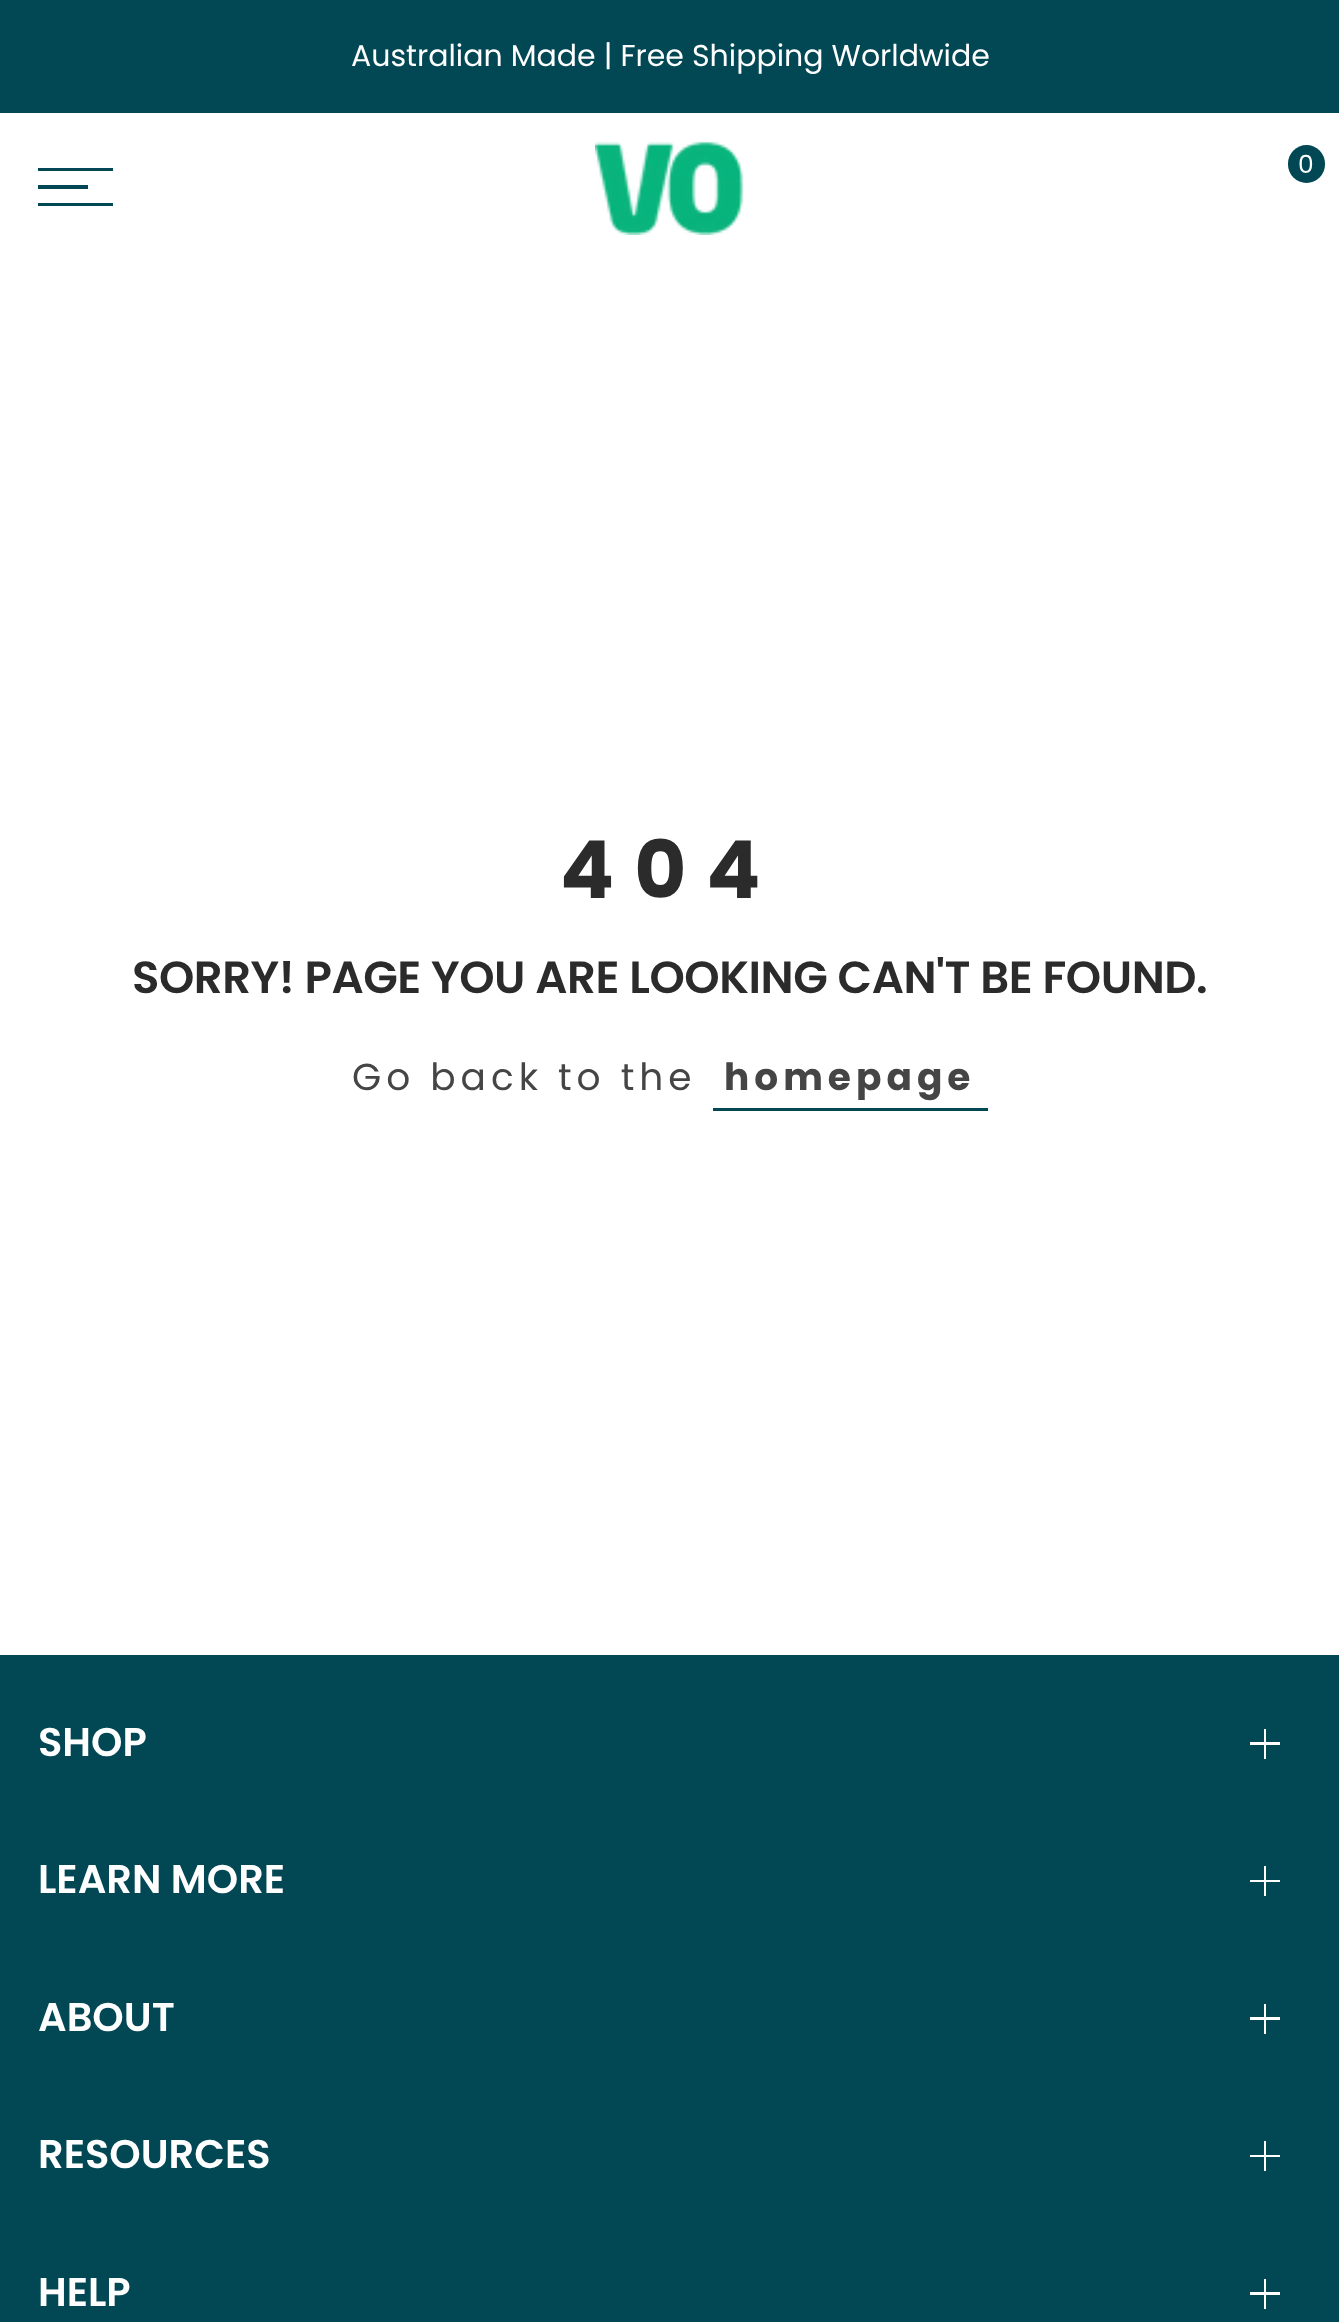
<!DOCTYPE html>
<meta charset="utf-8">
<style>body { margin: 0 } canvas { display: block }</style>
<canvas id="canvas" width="1339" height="2322"></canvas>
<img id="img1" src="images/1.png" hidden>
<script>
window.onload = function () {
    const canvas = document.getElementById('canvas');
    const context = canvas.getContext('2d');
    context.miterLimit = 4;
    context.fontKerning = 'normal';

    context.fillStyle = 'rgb(255, 255, 255)';
    context.fillRect(0, 0, 1339, 2322);
    context.fillStyle = 'rgb(1, 71, 84)';
    context.fillRect(0, 0, 1339, 113);
    context.drawImage(document.getElementById('img1'), 595, 141, 149, 94);
    context.beginPath();
    context.roundRect(1288, 145, 37, 38, 18.5);
    context.fill();
    context.fillRect(38, 168, 75, 3);
    context.fillRect(38, 185, 50, 4);
    context.fillRect(38, 203, 75, 3);
    context.fillRect(713, 1108, 275, 3);
    context.fillRect(0, 1655, 1339, 667);
    context.fillStyle = 'rgb(255, 255, 255)';
    context.fillRect(1264, 1729, 2, 30);
    context.fillRect(1250, 1742, 30, 3);
    context.fillRect(1264, 1866, 2, 30);
    context.fillRect(1250, 1880, 30, 2);
    context.fillRect(1264, 2004, 2, 30);
    context.fillRect(1250, 2017, 30, 3);
    context.fillRect(1264, 2141, 2, 30);
    context.fillRect(1250, 2155, 30, 2);
    context.fillRect(1264, 2279, 2, 30);
    context.fillRect(1250, 2292, 30, 3);
    context.font = '30px Poppins';
    context.fillText('Australian Made | Free Shipping Worldwide', 351, 66);
    context.font = '25px Poppins';
    context.fillText('0', 1298, 173);
    context.letterSpacing = '20px';
    context.font = 'bold 80px Poppins';
    context.fillStyle = 'rgb(43, 43, 43)';
    context.fillText('404', 560, 898);
    context.letterSpacing = '-0.45px';
    context.font = '600 45px Poppins';
    context.fillText('SORRY! PAGE YOU ARE LOOKING CAN\'T BE FOUND.', 132, 993);
    context.letterSpacing = '5px';
    context.font = '37.5px Poppins';
    context.fillStyle = 'rgb(69, 69, 69)';
    context.fillText('Go back to the', 352, 1090);
    context.font = 'bold 37.5px Poppins';
    context.fillText('homepage', 724, 1090);
    context.letterSpacing = '0px';
    context.font = '600 40px Poppins';
    context.fillStyle = 'rgb(255, 255, 255)';
    context.fillText('SHOP', 38, 1756);
    context.fillText('LEARN MORE', 38, 1893);
    context.fillText('ABOUT', 38, 2031);
    context.fillText('RESOURCES', 38, 2168);
    context.fillText('HELP', 38, 2306);
};
</script>
